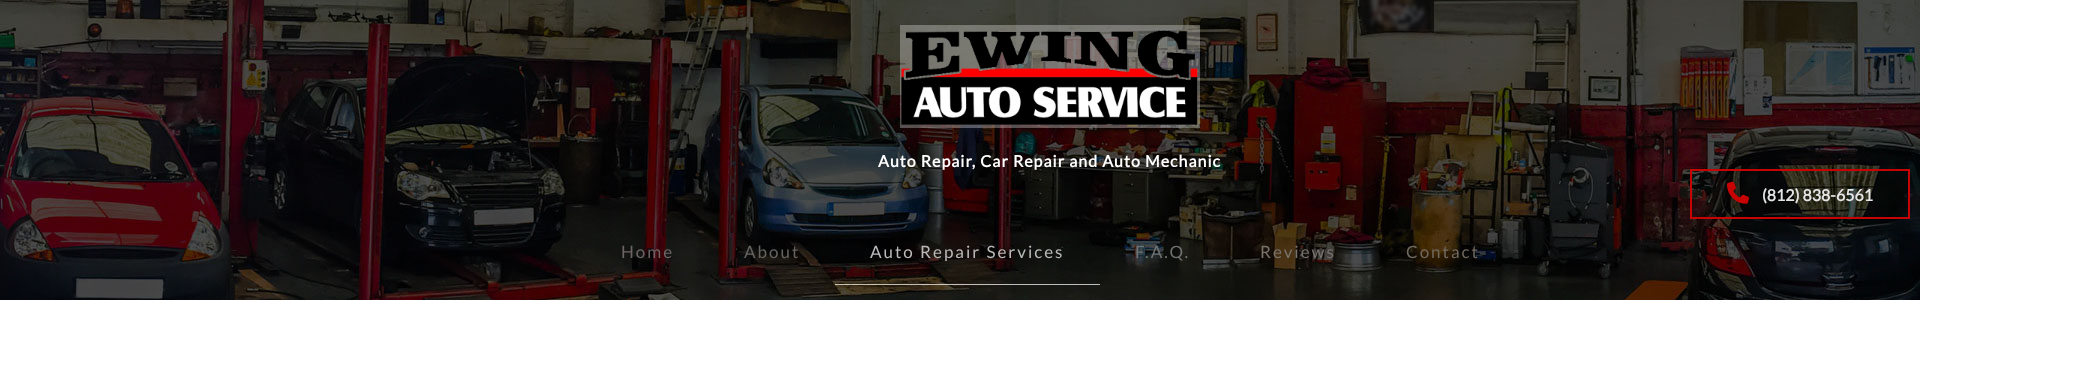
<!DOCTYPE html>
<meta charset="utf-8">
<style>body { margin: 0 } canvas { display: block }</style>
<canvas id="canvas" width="2100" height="380"></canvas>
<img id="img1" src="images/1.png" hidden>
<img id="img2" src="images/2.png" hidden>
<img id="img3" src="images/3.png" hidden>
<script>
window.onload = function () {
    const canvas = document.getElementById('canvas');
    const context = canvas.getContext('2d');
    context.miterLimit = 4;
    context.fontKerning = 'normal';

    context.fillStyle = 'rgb(255, 255, 255)';
    context.fillRect(0, 0, 2100, 380);
    context.drawImage(document.getElementById('img1'), 0, 0, 1920, 300);
    context.fillStyle = 'rgba(255, 255, 255, 0.3)';
    context.fillRect(900, 25, 300, 103);
    context.drawImage(document.getElementById('img2'), 901, 30, 297, 95);
    context.strokeStyle = 'rgb(200, 3, 3)';
    context.lineWidth = 2;
    context.strokeRect(1691, 170, 218, 48);
    context.drawImage(document.getElementById('img3'), 1727, 181, 22, 23);
    context.fillStyle = 'rgba(255, 255, 255, 0.72)';
    context.fillRect(835, 284, 265, 1);
    context.letterSpacing = '1px';
    context.font = 'bold 16px Lato';
    context.fillStyle = 'rgb(255, 255, 255)';
    context.fillText('Auto Repair, Car Repair and Auto Mechanic', 878, 167);
    context.letterSpacing = '0px';
    context.fillStyle = 'rgb(230, 230, 230)';
    context.fillText('(812) 838-6561', 1762, 201);
    context.letterSpacing = '2px';
    context.font = '17px Lato';
    context.fillStyle = 'rgb(109, 101, 101)';
    context.fillText('Home', 621, 258);
    context.fillStyle = 'rgb(101, 100, 98)';
    context.fillText('About', 744, 258);
    context.fillStyle = 'rgb(187, 186, 186)';
    context.fillText('Auto Repair Services', 870, 258);
    context.fillStyle = 'rgb(111, 114, 114)';
    context.fillText('F.A.Q.', 1135, 258);
    context.fillStyle = 'rgb(119, 114, 107)';
    context.fillText('Reviews', 1260, 258);
    context.fillStyle = 'rgb(112, 105, 94)';
    context.fillText('Contact', 1406, 258);
};
</script>
